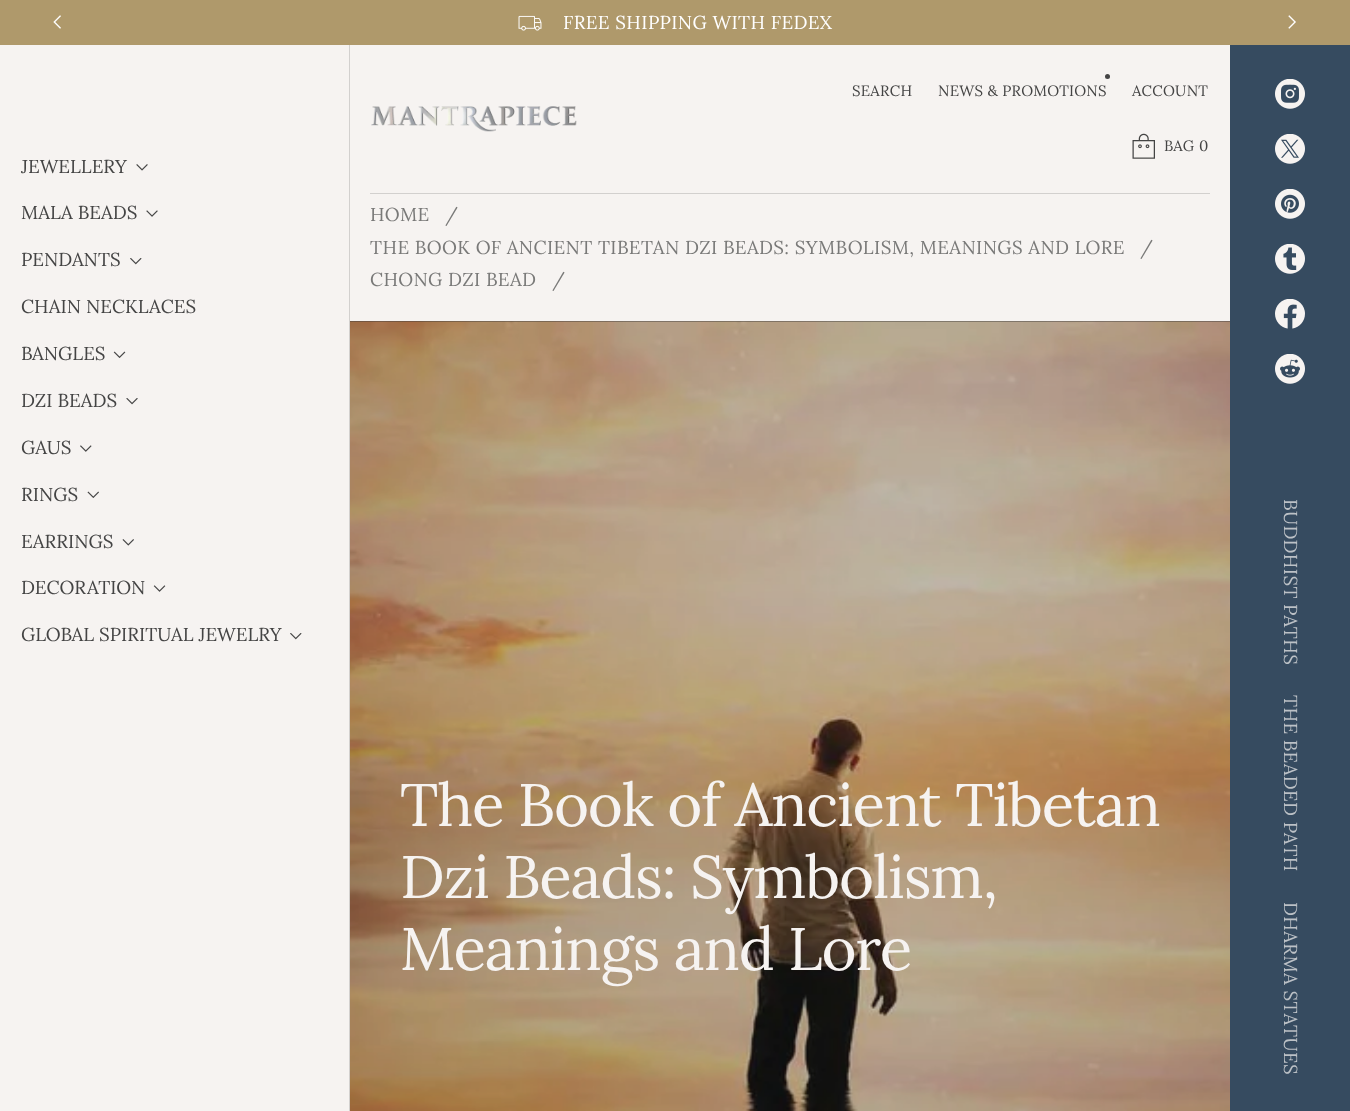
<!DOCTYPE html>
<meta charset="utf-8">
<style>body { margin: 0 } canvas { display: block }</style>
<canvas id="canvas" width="1350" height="1111"></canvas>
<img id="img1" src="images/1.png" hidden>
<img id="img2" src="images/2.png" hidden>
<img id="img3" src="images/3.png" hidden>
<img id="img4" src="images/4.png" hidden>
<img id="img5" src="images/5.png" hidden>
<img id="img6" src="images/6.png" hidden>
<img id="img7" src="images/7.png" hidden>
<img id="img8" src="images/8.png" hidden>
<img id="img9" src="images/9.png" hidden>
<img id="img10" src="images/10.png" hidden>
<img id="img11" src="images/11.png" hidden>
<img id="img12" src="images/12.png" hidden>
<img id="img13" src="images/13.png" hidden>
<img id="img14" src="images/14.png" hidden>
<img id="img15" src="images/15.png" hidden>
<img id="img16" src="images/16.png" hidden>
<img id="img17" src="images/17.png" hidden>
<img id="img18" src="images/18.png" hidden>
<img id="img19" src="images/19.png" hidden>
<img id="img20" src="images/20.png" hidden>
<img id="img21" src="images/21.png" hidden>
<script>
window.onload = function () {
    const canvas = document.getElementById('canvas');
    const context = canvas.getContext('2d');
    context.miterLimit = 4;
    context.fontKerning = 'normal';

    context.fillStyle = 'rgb(246, 243, 241)';
    context.fillRect(0, 0, 1350, 1111);
    context.fillStyle = 'rgb(175, 153, 107)';
    context.fillRect(0, 0, 1350, 45);
    context.drawImage(document.getElementById('img1'), 53, 15, 8, 14);
    context.drawImage(document.getElementById('img2'), 1288, 15, 8, 14);
    context.drawImage(document.getElementById('img3'), 518, 15, 24, 16);
    context.fillStyle = 'rgb(210, 208, 206)';
    context.fillRect(349, 45, 1, 1066);
    context.drawImage(document.getElementById('img4'), 136, 164, 12, 7);
    context.drawImage(document.getElementById('img5'), 146, 210, 12, 7);
    context.drawImage(document.getElementById('img6'), 130, 258, 12, 7);
    context.drawImage(document.getElementById('img7'), 113, 351, 13, 7);
    context.drawImage(document.getElementById('img8'), 126, 398, 12, 7);
    context.drawImage(document.getElementById('img9'), 80, 445, 12, 7);
    context.drawImage(document.getElementById('img10'), 87, 491, 12, 7);
    context.drawImage(document.getElementById('img11'), 122, 539, 12, 7);
    context.drawImage(document.getElementById('img12'), 153, 585, 13, 7);
    context.drawImage(document.getElementById('img6'), 290, 633, 12, 7);
    context.fillRect(370, 193, 840, 1);
    context.drawImage(document.getElementById('img13'), 371, 106, 206, 26);
    context.fillStyle = 'rgb(68, 68, 68)';
    context.beginPath();
    context.arc(1107.5, 76.5, 2.5, 0, 2 * Math.PI);
    context.fill();
    context.drawImage(document.getElementById('img14'), 1132, 133, 23, 26);
    context.fillStyle = 'rgb(60, 60, 60)';
    context.fillRect(350, 321, 880, 1);
    context.drawImage(document.getElementById('img15'), 350, 321, 880, 790);
    context.fillStyle = 'rgb(54, 75, 96)';
    context.fillRect(1230, 45, 120, 1066);
    context.drawImage(document.getElementById('img16'), 1275, 79, 30, 30);
    context.drawImage(document.getElementById('img17'), 1275, 134, 30, 30);
    context.drawImage(document.getElementById('img18'), 1275, 189, 30, 30);
    context.drawImage(document.getElementById('img19'), 1275, 244, 30, 30);
    context.drawImage(document.getElementById('img20'), 1275, 299, 30, 30);
    context.drawImage(document.getElementById('img21'), 1275, 354, 30, 30);
    context.letterSpacing = '0.38px';
    context.font = '18.75px Lora';
    context.fillStyle = 'rgb(255, 255, 255)';
    context.fillText('FREE SHIPPING WITH FEDEX', 563, 29);
    context.letterSpacing = '0px';
    context.fillStyle = 'rgb(68, 68, 68)';
    context.fillText('JEWELLERY', 21, 173);
    context.fillText('MALA BEADS', 21, 219);
    context.fillText('PENDANTS', 21, 266);
    context.fillText('CHAIN NECKLACES', 21, 313);
    context.fillText('BANGLES', 21, 360);
    context.fillText('DZI BEADS', 21, 407);
    context.fillText('GAUS', 21, 454);
    context.fillText('RINGS', 21, 501);
    context.fillText('EARRINGS', 21, 548);
    context.fillText('DECORATION', 21, 594);
    context.fillText('GLOBAL SPIRITUAL JEWELRY', 21, 641);
    context.letterSpacing = '0.25px';
    context.font = '15px Lora';
    context.fillText('SEARCH', 852, 96);
    context.fillText('NEWS & PROMOTIONS', 938, 96);
    context.fillText('ACCOUNT', 1132, 96);
    context.fillText('BAG', 1164, 151);
    context.fillText('0', 1199, 151);
    context.letterSpacing = '0.38px';
    context.font = '18.75px Lora';
    context.fillStyle = 'rgb(121, 121, 120)';
    context.fillText('HOME', 370, 221);
    context.fillText('/', 445, 221);
    context.fillText('THE BOOK OF ANCIENT TIBETAN DZI BEADS: SYMBOLISM, MEANINGS AND LORE', 370, 254);
    context.fillText('/', 1140, 254);
    context.fillText('CHONG DZI BEAD', 370, 286);
    context.fillText('/', 552, 286);
    context.letterSpacing = '-1.2px';
    context.font = '60px Lora';
    context.fillStyle = 'rgb(246, 243, 241)';
    context.fillText('The Book of Ancient Tibetan', 400, 826);
    context.fillText('Dzi Beads: Symbolism,', 400, 898);
    context.fillText('Meanings and Lore', 400, 970);
    context.letterSpacing = '0.38px';
    context.font = '18.75px Lora';
    context.fillStyle = 'rgb(188, 193, 198)';
    context.save();
    context.translate(1284, 499);
    context.rotate(90 * Math.PI / 180);
    context.fillText('BUDDHIST PATHS', 0, 0);
    context.restore();
    context.save();
    context.translate(1284, 695);
    context.rotate(90 * Math.PI / 180);
    context.fillText('THE BEADED PATH', 0, 0);
    context.restore();
    context.save();
    context.translate(1284, 902);
    context.rotate(90 * Math.PI / 180);
    context.fillText('DHARMA STATUES', 0, 0);
    context.restore();
};
</script>
